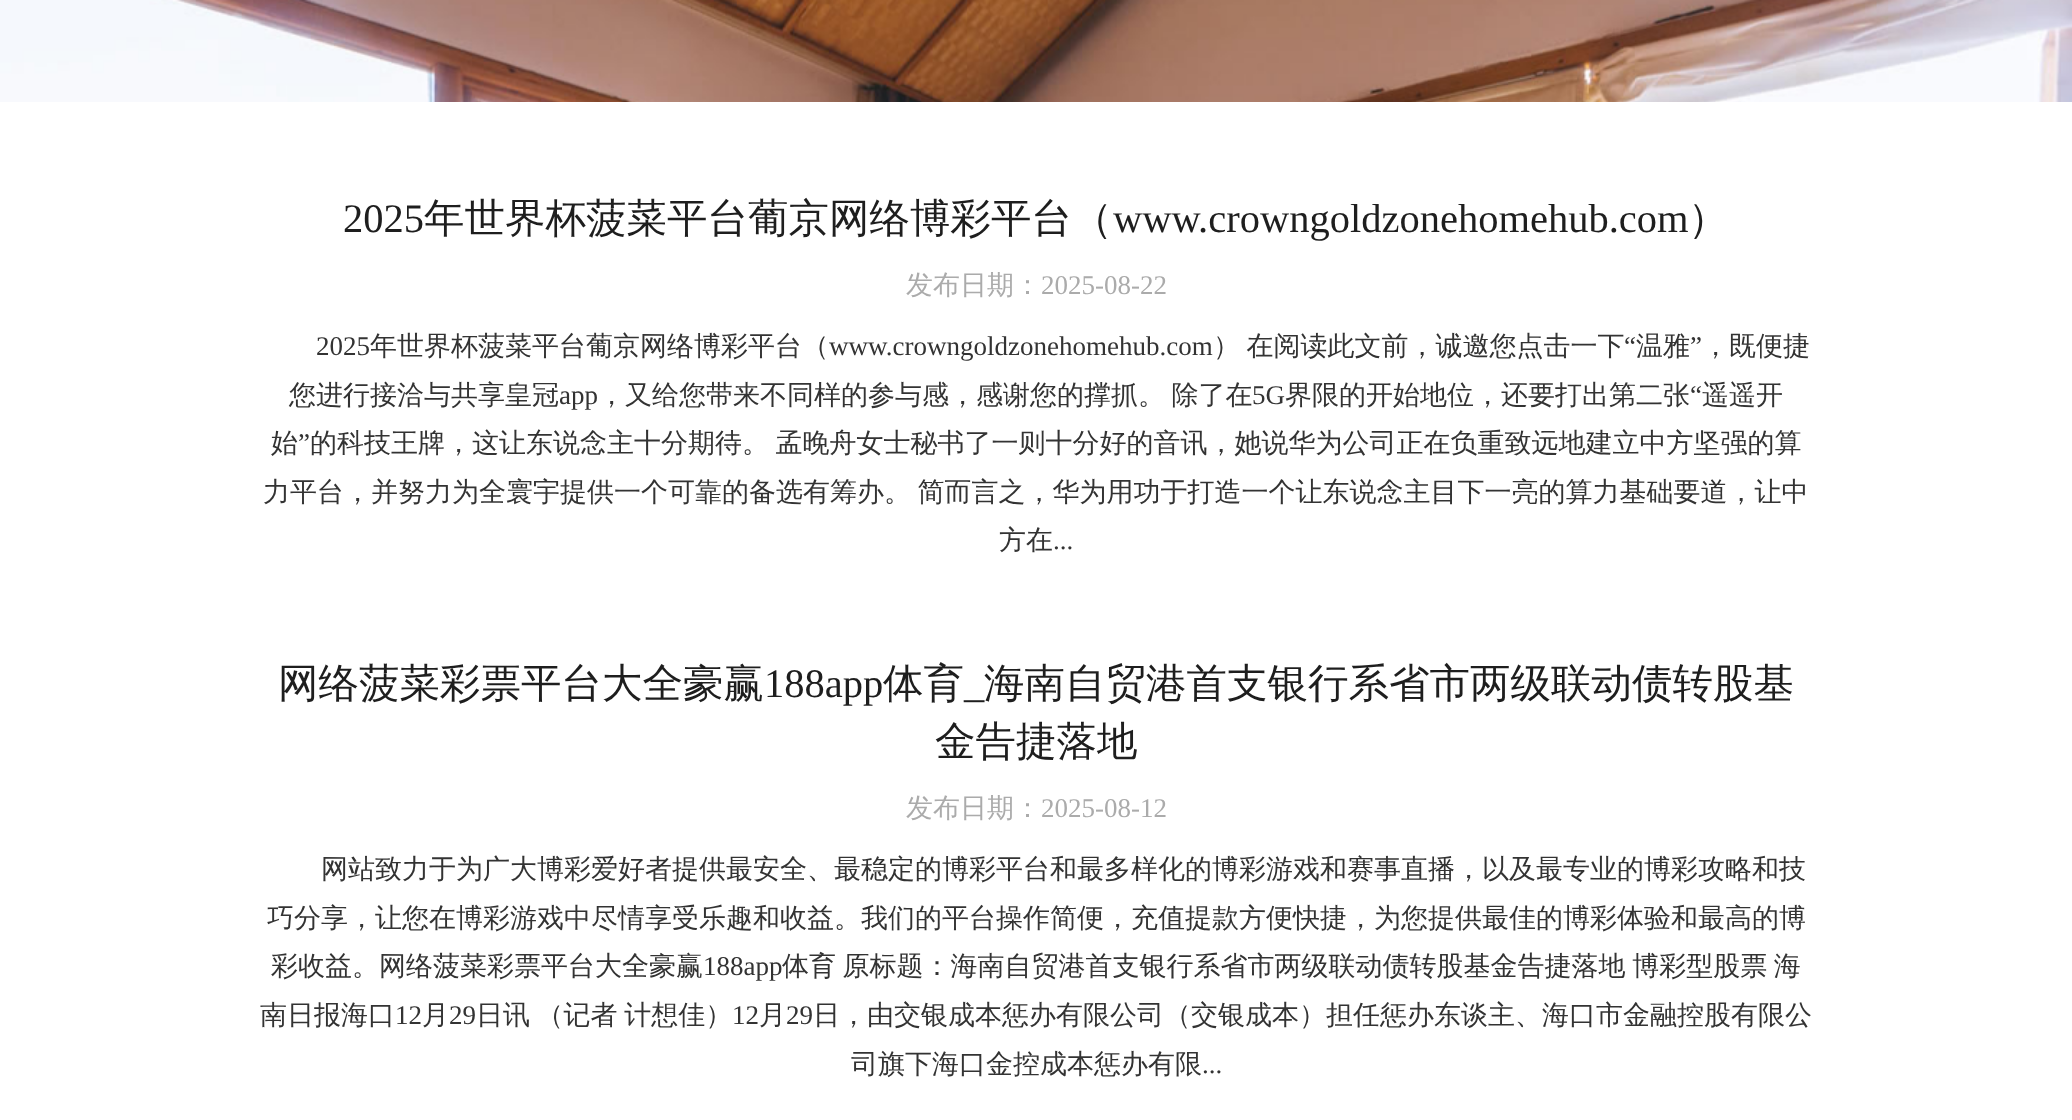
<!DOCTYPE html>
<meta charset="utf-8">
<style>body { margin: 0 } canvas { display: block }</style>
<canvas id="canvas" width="2072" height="1120"></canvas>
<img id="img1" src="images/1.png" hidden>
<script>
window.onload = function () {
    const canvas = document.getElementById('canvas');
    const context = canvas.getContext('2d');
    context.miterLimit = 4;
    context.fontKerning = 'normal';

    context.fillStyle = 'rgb(255, 255, 255)';
    context.fillRect(0, 0, 2072, 1120);
    context.drawImage(document.getElementById('img1'), 0, 0, 2072, 102);
    context.font = '40.5px Liberation Serif';
    context.fillStyle = 'rgb(30, 30, 30)';
    context.fillText('2025', 343, 232);
    context.font = '500 40.5px WenQuanYi Zen Hei';
    context.fillText('年世界杯菠菜平台葡京网络博彩平台（', 424, 232);
    context.font = '40.5px Liberation Serif';
    context.fillText('www.crowngoldzonehomehub.com', 1113, 232);
    context.font = '500 40.5px WenQuanYi Zen Hei';
    context.fillText('）', 1688, 232);
    context.font = '500 27px WenQuanYi Zen Hei';
    context.fillStyle = 'rgb(171, 171, 171)';
    context.fillText('发布日期：', 906, 294);
    context.font = '27px Liberation Serif';
    context.fillText('2025-08-22', 1041, 294);
    context.fillStyle = 'rgb(51, 51, 51)';
    context.fillText('2025', 316, 355);
    context.font = '500 27px WenQuanYi Zen Hei';
    context.fillText('年世界杯菠菜平台葡京网络博彩平台（', 370, 355);
    context.font = '27px Liberation Serif';
    context.fillText('www.crowngoldzonehomehub.com', 829, 355);
    context.wordSpacing = '-1.5px';
    context.font = '500 27px WenQuanYi Zen Hei';
    context.fillText('） 在阅读此文前，诚邀您点击一下', 1213, 355);
    context.wordSpacing = '0px';
    context.font = '27px Liberation Serif';
    context.fillText('“', 1624, 355);
    context.font = '500 27px WenQuanYi Zen Hei';
    context.fillText('温雅', 1636, 355);
    context.font = '27px Liberation Serif';
    context.fillText('”', 1690, 355);
    context.font = '500 27px WenQuanYi Zen Hei';
    context.fillText('，既便捷', 1702, 355);
    context.fillText('您进行接洽与共享皇冠', 289, 404);
    context.wordSpacing = '-1.5px';
    context.fillText('，又给您带来不同样的参与感，感谢您的撑抓。 除了在', 598, 404);
    context.wordSpacing = '0px';
    context.font = '27px Liberation Serif';
    context.fillText('5G', 1252, 404);
    context.font = '500 27px WenQuanYi Zen Hei';
    context.fillText('界限的开始地位，还要打出第二张', 1285, 404);
    context.font = '27px Liberation Serif';
    context.fillText('“', 1690, 404);
    context.font = '500 27px WenQuanYi Zen Hei';
    context.fillText('遥遥开', 1702, 404);
    context.font = '27px Liberation Serif';
    context.fillText('app', 559, 404);
    context.font = '500 27px WenQuanYi Zen Hei';
    context.fillText('始', 271, 452);
    context.font = '27px Liberation Serif';
    context.fillText('”', 298, 452);
    context.wordSpacing = '-1.5px';
    context.font = '500 27px WenQuanYi Zen Hei';
    context.fillText('的科技王牌，这让东说念主十分期待。 孟晚舟女士秘书了一则十分好的音讯，她说华为公司正在负重致远地建立中方坚强的算', 310, 452);
    context.fillText('力平台，并努力为全寰宇提供一个可靠的备选有筹办。 简而言之，华为用功于打造一个让东说念主目下一亮的算力基础要道，让中', 263, 501);
    context.wordSpacing = '0px';
    context.fillText('方在', 999, 549);
    context.font = '27px Liberation Serif';
    context.fillText('...', 1053, 549);
    context.font = '500 40.5px WenQuanYi Zen Hei';
    context.fillStyle = 'rgb(30, 30, 30)';
    context.fillText('网络菠菜彩票平台大全豪赢', 278, 697);
    context.font = '40.5px Liberation Serif';
    context.fillText('188app', 764, 697);
    context.font = '500 40.5px WenQuanYi Zen Hei';
    context.fillText('体育', 883, 697);
    context.font = '40.5px Liberation Serif';
    context.fillText('_', 964, 697);
    context.font = '500 40.5px WenQuanYi Zen Hei';
    context.fillText('海南自贸港首支银行系省市两级联动债转股基', 984, 697);
    context.fillText('金告捷落地', 935, 755);
    context.font = '500 27px WenQuanYi Zen Hei';
    context.fillStyle = 'rgb(171, 171, 171)';
    context.fillText('发布日期：', 906, 817);
    context.font = '27px Liberation Serif';
    context.fillText('2025-08-12', 1041, 817);
    context.font = '500 27px WenQuanYi Zen Hei';
    context.fillStyle = 'rgb(51, 51, 51)';
    context.fillText('网站致力于为广大博彩爱好者提供最安全、最稳定的博彩平台和最多样化的博彩游戏和赛事直播，以及最专业的博彩攻略和技', 321, 878);
    context.fillText('巧分享，让您在博彩游戏中尽情享受乐趣和收益。我们的平台操作简便，充值提款方便快捷，为您提供最佳的博彩体验和最高的博', 267, 927);
    context.fillText('彩收益。网络菠菜彩票平台大全豪赢', 271, 975);
    context.font = '27px Liberation Serif';
    context.fillText('188app', 703, 975);
    context.wordSpacing = '-1.5px';
    context.font = '500 27px WenQuanYi Zen Hei';
    context.fillText('体育 原标题：海南自贸港首支银行系省市两级联动债转股基金告捷落地 博彩型股票 海', 782, 975);
    context.wordSpacing = '0px';
    context.fillText('南日报海口', 260, 1024);
    context.font = '27px Liberation Serif';
    context.fillText('12', 395, 1024);
    context.font = '500 27px WenQuanYi Zen Hei';
    context.fillText('月', 422, 1024);
    context.font = '27px Liberation Serif';
    context.fillText('29', 449, 1024);
    context.wordSpacing = '-1.5px';
    context.font = '500 27px WenQuanYi Zen Hei';
    context.fillText('日讯 （记者 计想佳）', 476, 1024);
    context.wordSpacing = '0px';
    context.font = '27px Liberation Serif';
    context.fillText('12', 732, 1024);
    context.font = '500 27px WenQuanYi Zen Hei';
    context.fillText('月', 759, 1024);
    context.font = '27px Liberation Serif';
    context.fillText('29', 786, 1024);
    context.font = '500 27px WenQuanYi Zen Hei';
    context.fillText('日，由交银成本惩办有限公司（交银成本）担任惩办东谈主、海口市金融控股有限公', 813, 1024);
    context.fillText('司旗下海口金控成本惩办有限', 851, 1073);
    context.font = '27px Liberation Serif';
    context.fillText('...', 1202, 1073);
};
</script>
